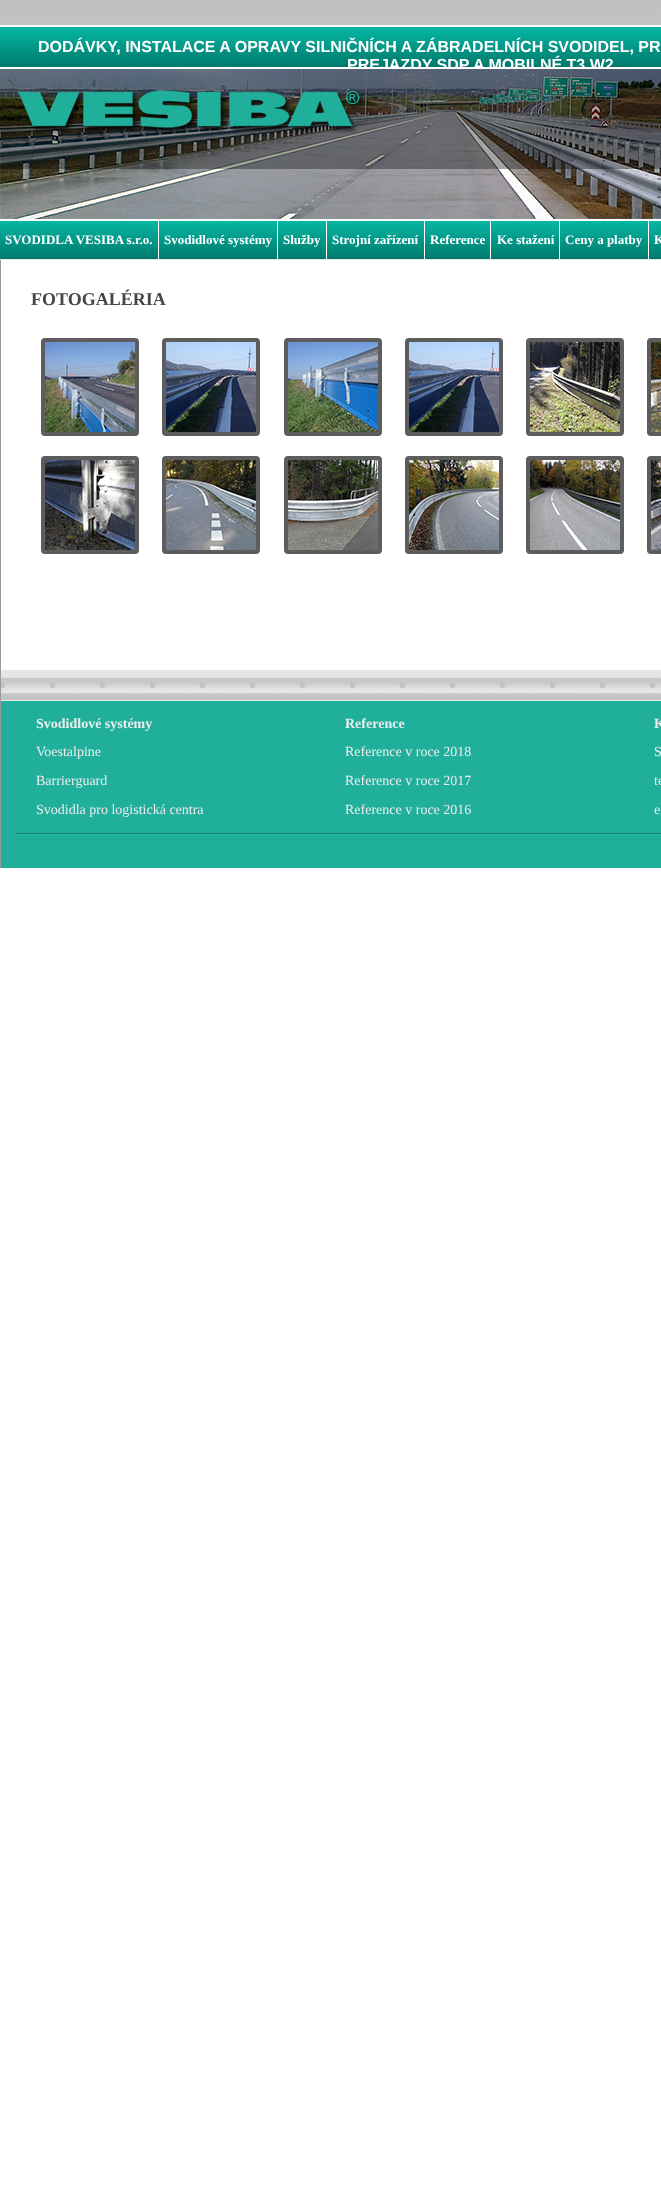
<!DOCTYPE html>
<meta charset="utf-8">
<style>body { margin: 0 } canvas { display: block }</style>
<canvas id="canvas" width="661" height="2205"></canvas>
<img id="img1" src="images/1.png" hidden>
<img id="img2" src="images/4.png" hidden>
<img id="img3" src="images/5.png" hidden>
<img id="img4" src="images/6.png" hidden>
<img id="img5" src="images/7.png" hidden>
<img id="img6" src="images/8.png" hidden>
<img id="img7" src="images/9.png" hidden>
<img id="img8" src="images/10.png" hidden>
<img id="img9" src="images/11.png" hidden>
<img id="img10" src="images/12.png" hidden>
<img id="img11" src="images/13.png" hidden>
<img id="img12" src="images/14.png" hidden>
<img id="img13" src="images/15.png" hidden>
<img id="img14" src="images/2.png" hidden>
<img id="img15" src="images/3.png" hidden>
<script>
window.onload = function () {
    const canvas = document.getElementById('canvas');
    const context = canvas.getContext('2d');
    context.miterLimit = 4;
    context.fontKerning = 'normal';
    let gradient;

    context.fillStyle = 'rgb(255, 255, 255)';
    context.fillRect(0, 0, 661, 2205);
    context.drawImage(document.getElementById('img1'), 0, 0, 661, 260);
    gradient = context.createLinearGradient(480, 27, 480, 67);
    gradient.addColorStop(0, 'rgb(5, 183, 164)');
    gradient.addColorStop(1, 'rgb(0, 121, 108)');
    context.fillStyle = gradient;
    context.fillRect(0, 27, 661, 40);
    context.fillStyle = 'rgb(255, 255, 255)';
    context.fillRect(0, 25, 661, 2);
    context.fillRect(0, 67, 661, 2);
    gradient = context.createLinearGradient(480, 221, 480, 259);
    gradient.addColorStop(0, 'rgb(5, 183, 164)');
    gradient.addColorStop(1, 'rgb(0, 121, 108)');
    context.fillStyle = gradient;
    context.fillRect(0, 221, 661, 38);
    context.fillStyle = 'rgb(255, 255, 255)';
    context.fillRect(0, 219, 661, 2);
    context.fillRect(158, 221, 1, 38);
    context.fillRect(277, 221, 1, 38);
    context.fillRect(326, 221, 1, 38);
    context.fillRect(424, 221, 1, 38);
    context.fillRect(490, 221, 1, 38);
    context.fillRect(559, 221, 1, 38);
    context.fillRect(648, 221, 1, 38);
    context.fillStyle = 'rgb(153, 153, 153)';
    context.fillRect(0, 260, 1, 608);
    context.beginPath();
    context.roundRect(43, 340, 94, 94, 2);
    context.strokeStyle = 'rgb(93, 93, 93)';
    context.lineWidth = 4;
    context.stroke();
    context.drawImage(document.getElementById('img2'), 45, 342, 90, 90);
    context.beginPath();
    context.roundRect(164, 340, 94, 94, 2);
    context.stroke();
    context.drawImage(document.getElementById('img3'), 166, 342, 90, 90);
    context.beginPath();
    context.roundRect(286, 340, 94, 94, 2);
    context.stroke();
    context.drawImage(document.getElementById('img4'), 288, 342, 90, 90);
    context.beginPath();
    context.roundRect(407, 340, 94, 94, 2);
    context.stroke();
    context.drawImage(document.getElementById('img3'), 409, 342, 90, 90);
    context.beginPath();
    context.roundRect(528, 340, 94, 94, 2);
    context.stroke();
    context.drawImage(document.getElementById('img5'), 530, 342, 90, 90);
    context.beginPath();
    context.roundRect(649, 340, 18, 94, 2);
    context.stroke();
    context.drawImage(document.getElementById('img6'), 651, 342, 10, 90);
    context.beginPath();
    context.roundRect(43, 458, 94, 94, 2);
    context.stroke();
    context.drawImage(document.getElementById('img7'), 45, 460, 90, 90);
    context.beginPath();
    context.roundRect(164, 458, 94, 94, 2);
    context.stroke();
    context.drawImage(document.getElementById('img8'), 166, 460, 90, 90);
    context.beginPath();
    context.roundRect(286, 458, 94, 94, 2);
    context.stroke();
    context.drawImage(document.getElementById('img9'), 288, 460, 90, 90);
    context.beginPath();
    context.roundRect(407, 458, 94, 94, 2);
    context.stroke();
    context.drawImage(document.getElementById('img10'), 409, 460, 90, 90);
    context.beginPath();
    context.roundRect(528, 458, 94, 94, 2);
    context.stroke();
    context.drawImage(document.getElementById('img11'), 530, 460, 90, 90);
    context.beginPath();
    context.roundRect(649, 458, 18, 94, 2);
    context.stroke();
    context.drawImage(document.getElementById('img12'), 651, 460, 10, 90);
    context.fillStyle = 'rgb(31, 175, 155)';
    context.fillRect(1, 701, 660, 167);
    context.drawImage(document.getElementById('img13'), 1, 670, 660, 31);
    context.fillStyle = 'rgb(22, 124, 110)';
    context.fillRect(16, 833, 645, 1);
    context.fillStyle = 'rgb(21, 196, 170)';
    context.fillRect(16, 834, 645, 1);
    context.font = 'bold 16px Liberation Sans';
    context.fillStyle = 'rgb(255, 255, 255)';
    context.fillText('DODÁVKY, INSTALACE A OPRAVY SILNIČNÍCH A ZÁBRADELNÍCH SVODIDEL, PR', 38, 52);
    context.fillText('PREJAZDY SDP A MOBILNÉ T3 W2', 347, 70);
    context.drawImage(document.getElementById('img14'), 0, 69, 661, 150);
    context.fillStyle = 'rgba(0, 0, 0, 0.35)';
    context.fillRect(0, 69, 661, 100);
    context.drawImage(document.getElementById('img15'), 18, 90, 346, 44);
    context.font = 'bold 13px Liberation Serif';
    context.fillStyle = 'rgb(255, 255, 255)';
    context.fillText('SVODIDLA VESIBA s.r.o.', 5, 244);
    context.fillText('Svodidlové systémy', 164, 244);
    context.fillText('Služby', 283, 244);
    context.fillText('Strojní zařízení', 332, 244);
    context.fillText('Reference', 430, 244);
    context.fillText('Ke stažení', 497, 244);
    context.fillText('Ceny a platby', 565, 244);
    context.fillText('K', 654, 244);
    context.font = 'bold 18px Liberation Serif';
    context.fillStyle = 'rgb(70, 70, 70)';
    context.fillText('FOTOGALÉRIA', 31, 305);
    context.font = 'bold 14px Liberation Serif';
    context.fillStyle = 'rgb(237, 237, 237)';
    context.fillText('Svodidlové systémy', 36, 728);
    context.font = '14px Liberation Serif';
    context.fillText('Voestalpine', 36, 756);
    context.fillText('Barrierguard', 36, 785);
    context.fillText('Svodidla pro logistická centra', 36, 814);
    context.font = 'bold 14px Liberation Serif';
    context.fillText('Reference', 345, 728);
    context.font = '14px Liberation Serif';
    context.fillText('Reference v roce 2018', 345, 756);
    context.fillText('Reference v roce 2017', 345, 785);
    context.fillText('Reference v roce 2016', 345, 814);
    context.font = 'bold 14px Liberation Serif';
    context.fillText('K', 654, 728);
    context.font = '14px Liberation Serif';
    context.fillText('S', 654, 756);
    context.fillText('te', 654, 785);
    context.fillText('e', 654, 814);
};
</script>
